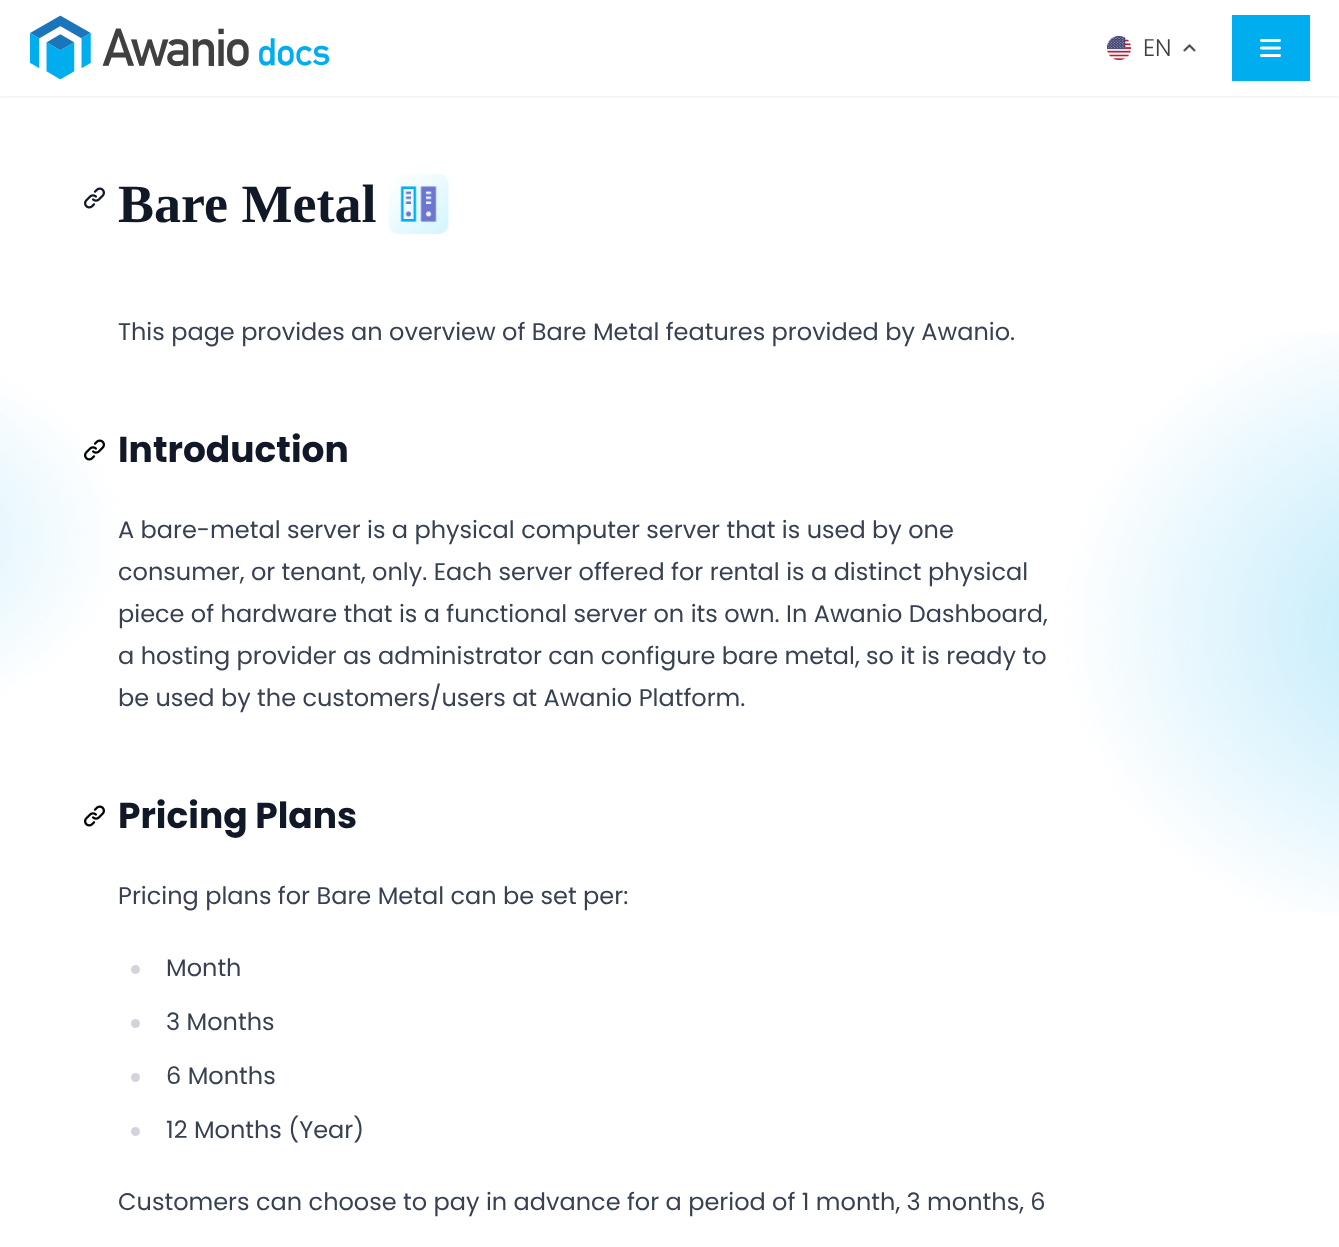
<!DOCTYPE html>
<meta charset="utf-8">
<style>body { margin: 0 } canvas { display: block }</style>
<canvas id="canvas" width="1339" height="1247"></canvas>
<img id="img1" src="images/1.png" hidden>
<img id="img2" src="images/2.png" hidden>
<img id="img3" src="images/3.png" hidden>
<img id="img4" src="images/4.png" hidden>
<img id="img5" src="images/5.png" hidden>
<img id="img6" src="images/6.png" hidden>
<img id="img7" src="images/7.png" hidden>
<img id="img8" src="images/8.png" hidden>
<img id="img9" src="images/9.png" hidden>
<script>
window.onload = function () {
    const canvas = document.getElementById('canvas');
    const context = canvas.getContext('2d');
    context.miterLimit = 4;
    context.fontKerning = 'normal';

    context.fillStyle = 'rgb(255, 255, 255)';
    context.fillRect(0, 0, 1339, 1247);
    context.drawImage(document.getElementById('img1'), 0, 333, 1339, 580);
    context.save();
    context.beginPath();
    context.rect(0, 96, 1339, 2);
    context.clip();
    context.fillStyle = 'rgba(0, 0, 0, 0.05)';
    context.filter = 'blur(1.5px)';
    context.beginPath();
    context.rect(0, 2, 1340, 96);
    context.fill();
    context.filter = 'none';
    context.restore();
    context.drawImage(document.getElementById('img2'), 30, 15, 300, 65);
    context.drawImage(document.getElementById('img3'), 1107, 36, 24, 24);
    context.drawImage(document.getElementById('img4'), 1182, 43, 14, 9);
    context.fillStyle = 'rgba(0, 0, 0, 0.05)';
    context.filter = 'blur(1.5px)';
    context.beginPath();
    context.rect(1232, 17, 78, 66);
    context.fill();
    context.filter = 'none';
    context.fillStyle = 'rgb(0, 173, 238)';
    context.fillRect(1232, 15, 78, 66);
    context.drawImage(document.getElementById('img5'), 1260, 39, 21, 18);
    context.drawImage(document.getElementById('img6'), 84, 187, 21, 22);
    context.drawImage(document.getElementById('img7'), 388, 174, 61, 60);
    context.drawImage(document.getElementById('img8'), 84, 439, 21, 22);
    context.drawImage(document.getElementById('img9'), 84, 805, 21, 22);
    context.fillStyle = 'rgb(209, 213, 219)';
    context.beginPath();
    context.arc(135.5, 969.5, 4.5, 0, 2 * Math.PI);
    context.fill();
    context.beginPath();
    context.arc(135.5, 1023.5, 4.5, 0, 2 * Math.PI);
    context.fill();
    context.beginPath();
    context.arc(135.5, 1077.5, 4.5, 0, 2 * Math.PI);
    context.fill();
    context.beginPath();
    context.arc(135.5, 1131.5, 4.5, 0, 2 * Math.PI);
    context.fill();
    context.font = '300 24px Poppins';
    context.fillStyle = 'rgb(64, 64, 65)';
    context.fillText('EN', 1143, 56);
    context.font = 'bold 54px Liberation Serif';
    context.fillStyle = 'rgb(17, 24, 39)';
    context.fillText('Bare Metal', 118, 222);
    context.font = '24px Poppins';
    context.fillStyle = 'rgb(55, 65, 81)';
    context.fillText('This page provides an overview of Bare Metal features provided by Awanio.', 118, 340);
    context.font = 'bold 36px Poppins';
    context.fillStyle = 'rgb(17, 24, 39)';
    context.fillText('Introduction', 118, 462);
    context.font = '24px Poppins';
    context.fillStyle = 'rgb(55, 65, 81)';
    context.fillText('A bare-metal server is a physical computer server that is used by one', 118, 538);
    context.fillText('consumer, or tenant, only. Each server offered for rental is a distinct physical', 118, 580);
    context.fillText('piece of hardware that is a functional server on its own. In Awanio Dashboard,', 118, 622);
    context.fillText('a hosting provider as administrator can configure bare metal, so it is ready to', 118, 664);
    context.fillText('be used by the customers/users at Awanio Platform.', 118, 706);
    context.font = 'bold 36px Poppins';
    context.fillStyle = 'rgb(17, 24, 39)';
    context.fillText('Pricing Plans', 118, 828);
    context.font = '24px Poppins';
    context.fillStyle = 'rgb(55, 65, 81)';
    context.fillText('Pricing plans for Bare Metal can be set per:', 118, 904);
    context.fillText('Month', 166, 976);
    context.fillText('3 Months', 166, 1030);
    context.fillText('6 Months', 166, 1084);
    context.fillText('12 Months (Year)', 166, 1138);
    context.fillText('Customers can choose to pay in advance for a period of 1 month, 3 months, 6', 118, 1210);
};
</script>
